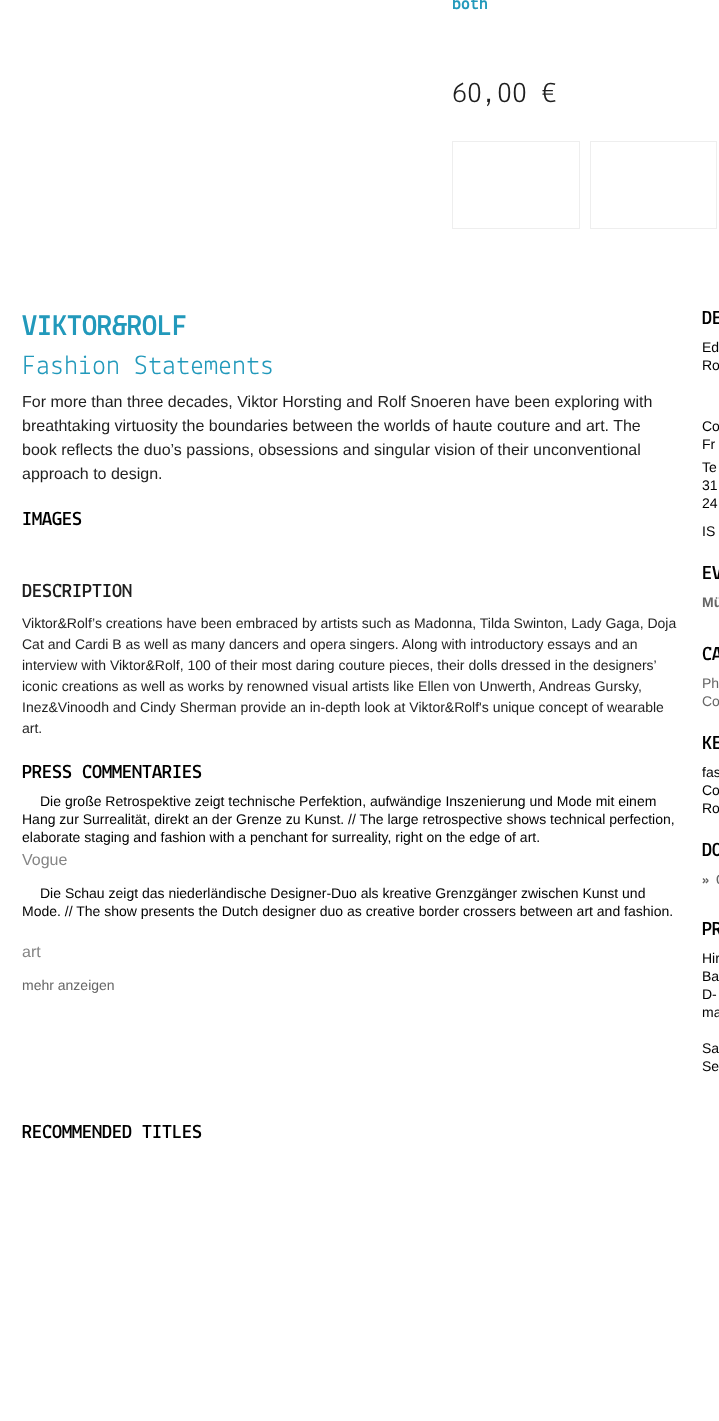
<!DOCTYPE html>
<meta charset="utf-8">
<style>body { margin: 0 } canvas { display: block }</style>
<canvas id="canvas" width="719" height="1421"></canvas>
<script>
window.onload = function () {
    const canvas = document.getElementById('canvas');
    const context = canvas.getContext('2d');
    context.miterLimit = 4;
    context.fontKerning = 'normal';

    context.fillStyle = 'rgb(255, 255, 255)';
    context.fillRect(0, 0, 719, 1421);
    context.strokeStyle = 'rgb(238, 238, 238)';
    context.strokeRect(452.5, 141.5, 127, 87);
    context.strokeRect(590.5, 141.5, 126, 87);
    context.font = 'bold 18px Lekton';
    context.fillStyle = 'rgb(34, 153, 187)';
    context.fillText('both', 452, 9);
    context.font = '30px Lekton';
    context.fillStyle = 'rgb(31, 31, 31)';
    context.fillText('60,00 €', 452, 102);
    context.font = 'bold 30px Lekton';
    context.fillStyle = 'rgb(34, 153, 187)';
    context.fillText('VIKTOR&ROLF', 22, 335);
    context.font = '28px Lekton';
    context.fillText('Fashion Statements', 22, 374);
    context.font = '16px Liberation Sans';
    context.fillStyle = 'rgb(31, 31, 31)';
    context.fillText('For more than three decades, Viktor Horsting and Rolf Snoeren have been exploring with', 22, 407);
    context.fillText('breathtaking virtuosity the boundaries between the worlds of haute couture and art. The', 22, 431);
    context.fillText('book reflects the duo’s passions, obsessions and singular vision of their unconventional', 22, 455);
    context.fillText('approach to design.', 22, 479);
    context.font = 'bold 20px Lekton';
    context.fillStyle = 'rgb(0, 0, 0)';
    context.fillText('IMAGES', 22, 525);
    context.fillStyle = 'rgb(31, 31, 31)';
    context.fillText('DESCRIPTION', 22, 597);
    context.font = '14px Liberation Sans';
    context.fillText('Viktor&Rolf’s creations have been embraced by artists such as Madonna, Tilda Swinton, Lady Gaga, Doja', 22, 628);
    context.fillText('Cat and Cardi B as well as many dancers and opera singers. Along with introductory essays and an', 22, 649);
    context.fillText('interview with Viktor&Rolf, 100 of their most daring couture pieces, their dolls dressed in the designers’', 22, 670);
    context.fillText('iconic creations as well as works by renowned visual artists like Ellen von Unwerth, Andreas Gursky,', 22, 691);
    context.fillText('Inez&Vinoodh and Cindy Sherman provide an in-depth look at Viktor&Rolf\'s unique concept of wearable', 22, 712);
    context.fillText('art.', 22, 733);
    context.font = 'bold 20px Lekton';
    context.fillStyle = 'rgb(0, 0, 0)';
    context.fillText('PRESS COMMENTARIES', 22, 778);
    context.font = '14px Liberation Sans';
    context.fillText('Die große Retrospektive zeigt technische Perfektion, aufwändige Inszenierung und Mode mit einem', 40, 806);
    context.fillText('Hang zur Surrealität, direkt an der Grenze zu Kunst. // The large retrospective shows technical perfection,', 22, 824);
    context.fillText('elaborate staging and fashion with a penchant for surreality, right on the edge of art.', 22, 842);
    context.font = '16px Liberation Sans';
    context.fillStyle = 'rgb(133, 133, 133)';
    context.fillText('Vogue', 22, 865);
    context.font = '14px Liberation Sans';
    context.fillStyle = 'rgb(0, 0, 0)';
    context.fillText('Die Schau zeigt das niederländische Designer-Duo als kreative Grenzgänger zwischen Kunst und', 40, 898);
    context.fillText('Mode. // The show presents the Dutch designer duo as creative border crossers between art and fashion.', 22, 916);
    context.font = '16px Liberation Sans';
    context.fillStyle = 'rgb(133, 133, 133)';
    context.fillText('art', 22, 957);
    context.font = '14px Liberation Sans';
    context.fillStyle = 'rgb(102, 102, 102)';
    context.fillText('mehr anzeigen', 22, 990);
    context.font = 'bold 20px Lekton';
    context.fillStyle = 'rgb(0, 0, 0)';
    context.fillText('DE', 702, 324);
    context.font = '14px Liberation Sans';
    context.fillText('Ed', 702, 352);
    context.fillText('Ro', 702, 370);
    context.fillText('Co', 702, 431);
    context.fillText('Fr', 702, 449);
    context.fillText('Te', 702, 472);
    context.fillText('31', 702, 490);
    context.fillText('24', 702, 508);
    context.fillText('IS', 702, 536);
    context.font = 'bold 20px Lekton';
    context.fillText('EV', 702, 579);
    context.font = 'bold 14px Liberation Sans';
    context.fillStyle = 'rgb(102, 102, 102)';
    context.fillText('Mü', 702, 607);
    context.font = 'bold 20px Lekton';
    context.fillStyle = 'rgb(0, 0, 0)';
    context.fillText('CA', 702, 660);
    context.font = '14px Liberation Sans';
    context.fillStyle = 'rgb(102, 102, 102)';
    context.fillText('Ph', 702, 688);
    context.fillText('Co', 702, 706);
    context.font = 'bold 20px Lekton';
    context.fillStyle = 'rgb(0, 0, 0)';
    context.fillText('KE', 702, 749);
    context.font = '14px Liberation Sans';
    context.fillText('fas', 702, 777);
    context.fillText('Co', 702, 795);
    context.fillText('Ro', 702, 813);
    context.font = 'bold 20px Lekton';
    context.fillText('DO', 702, 856);
    context.font = 'bold 14px Lekton';
    context.fillStyle = 'rgb(102, 102, 102)';
    context.fillText('» C', 702, 884);
    context.font = 'bold 20px Lekton';
    context.fillStyle = 'rgb(0, 0, 0)';
    context.fillText('PR', 702, 935);
    context.font = '14px Liberation Sans';
    context.fillText('Hir', 702, 963);
    context.fillText('Ba', 702, 981);
    context.fillText('D-', 702, 999);
    context.fillText('ma', 702, 1017);
    context.fillText('Sa', 702, 1053);
    context.fillText('Se', 702, 1071);
    context.font = 'bold 20px Lekton';
    context.fillText('RECOMMENDED TITLES', 22, 1138);
};
</script>
